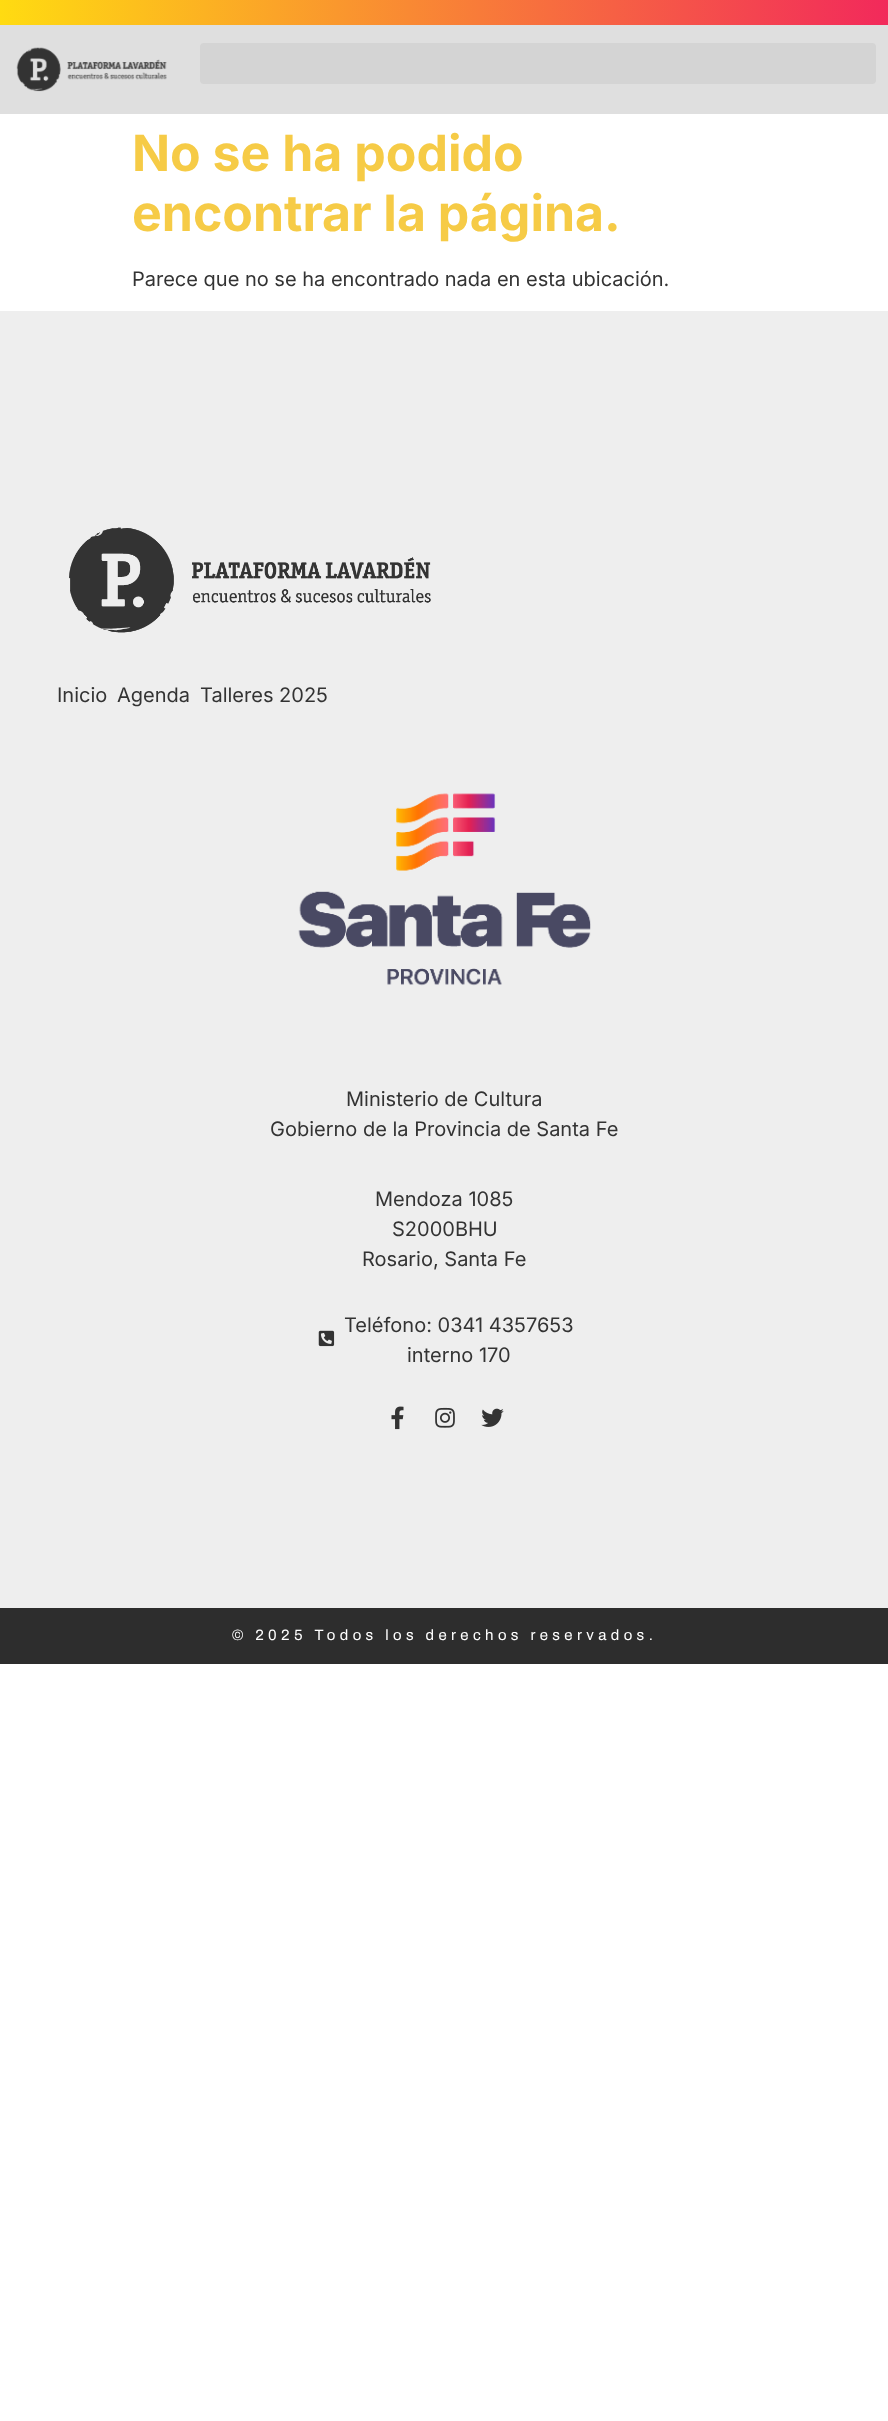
<!DOCTYPE html>
<meta charset="utf-8">
<style>body { margin: 0 } canvas { display: block }</style>
<canvas id="canvas" width="888" height="2421"></canvas>
<img id="img1" src="images/1.png" hidden>
<img id="img2" src="images/2.png" hidden>
<img id="img3" src="images/3.png" hidden>
<img id="img4" src="images/4.png" hidden>
<img id="img5" src="images/5.png" hidden>
<img id="img6" src="images/6.png" hidden>
<img id="img7" src="images/7.png" hidden>
<script>
window.onload = function () {
    const canvas = document.getElementById('canvas');
    const context = canvas.getContext('2d');
    context.miterLimit = 4;
    context.fontKerning = 'normal';
    let gradient;

    context.fillStyle = 'rgb(255, 255, 255)';
    context.fillRect(0, 0, 888, 2421);
    context.fillStyle = 'rgb(223, 223, 223)';
    context.fillRect(0, 25, 888, 89);
    gradient = context.createLinearGradient(0, 13, 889, 12);
    gradient.addColorStop(0, 'rgb(255, 219, 17)');
    gradient.addColorStop(1, 'rgb(242, 41, 91)');
    context.fillStyle = gradient;
    context.fillRect(0, 0, 888, 25);
    context.drawImage(document.getElementById('img1'), 16, 47, 151, 45);
    context.fillStyle = 'rgb(212, 212, 212)';
    context.beginPath();
    context.roundRect(200, 43, 676, 41, 4);
    context.fill();
    context.fillStyle = 'rgb(238, 238, 238)';
    context.fillRect(0, 311, 888, 1297);
    context.drawImage(document.getElementById('img2'), 69, 527, 362, 106);
    context.drawImage(document.getElementById('img3'), 298, 793, 293, 193);
    context.drawImage(document.getElementById('img4'), 318, 1330, 17, 17);
    context.drawImage(document.getElementById('img5'), 391, 1406, 13, 24);
    context.drawImage(document.getElementById('img6'), 435, 1407, 20, 21);
    context.drawImage(document.getElementById('img7'), 481, 1408, 23, 19);
    context.fillStyle = 'rgb(45, 45, 45)';
    context.fillRect(0, 1608, 888, 56);
    context.font = 'bold 50px Inter';
    context.fillStyle = 'rgb(246, 203, 70)';
    context.fillText('No se ha podido', 132, 171);
    context.fillText('encontrar la página.', 132, 231);
    context.font = '20px Inter';
    context.fillStyle = 'rgb(51, 51, 51)';
    context.fillText('Parece que no se ha encontrado nada en esta ubicación.', 132, 286);
    context.fillText('Inicio', 57, 702);
    context.fillText('Agenda', 117, 702);
    context.fillText('Talleres 2025', 200, 702);
    context.fillText('Ministerio de Cultura', 346, 1106);
    context.fillText('Gobierno de la Provincia de Santa Fe', 270, 1136);
    context.fillText('Mendoza 1085', 375, 1206);
    context.fillText('S2000BHU', 392, 1236);
    context.fillText('Rosario, Santa Fe', 362, 1266);
    context.fillText('Teléfono: 0341 4357653', 344, 1332);
    context.fillText('interno 170', 407, 1362);
    context.letterSpacing = '4.4px';
    context.font = '15px Archivo';
    context.fillStyle = 'rgb(255, 255, 255)';
    context.fillText('© 2025 Todos los derechos reservados.', 232, 1640);
};
</script>
